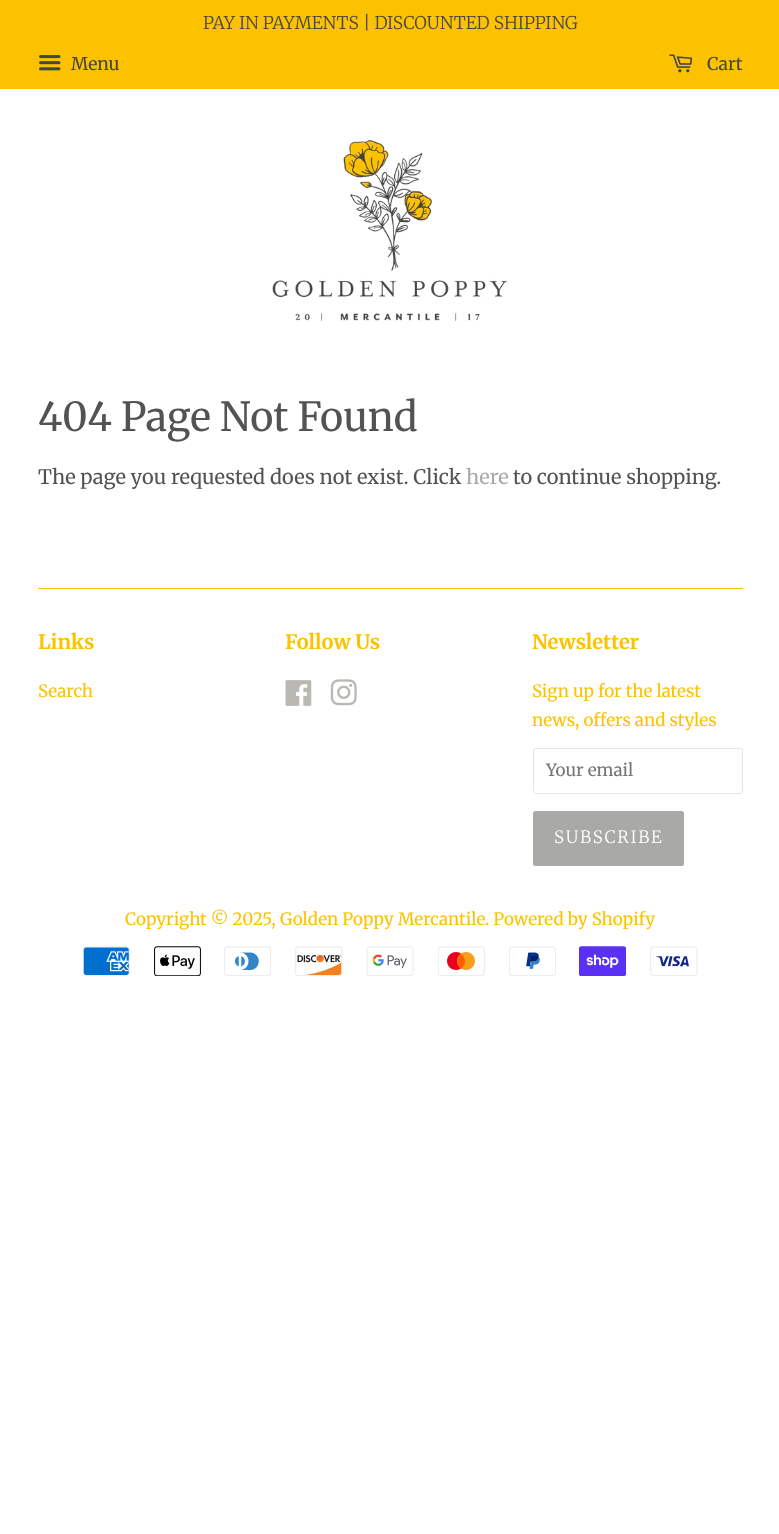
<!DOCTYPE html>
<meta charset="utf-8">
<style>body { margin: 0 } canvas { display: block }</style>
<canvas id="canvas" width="779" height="1534"></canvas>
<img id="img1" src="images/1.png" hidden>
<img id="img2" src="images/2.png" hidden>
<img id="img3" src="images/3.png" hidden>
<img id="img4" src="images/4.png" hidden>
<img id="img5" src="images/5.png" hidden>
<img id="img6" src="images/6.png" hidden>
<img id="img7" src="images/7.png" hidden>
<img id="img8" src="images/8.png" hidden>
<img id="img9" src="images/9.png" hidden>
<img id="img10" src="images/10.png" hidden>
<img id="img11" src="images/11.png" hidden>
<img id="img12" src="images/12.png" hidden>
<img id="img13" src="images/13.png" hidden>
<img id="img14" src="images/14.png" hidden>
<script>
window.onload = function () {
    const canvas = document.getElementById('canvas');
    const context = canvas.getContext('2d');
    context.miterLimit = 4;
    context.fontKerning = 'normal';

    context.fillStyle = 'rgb(255, 255, 255)';
    context.fillRect(0, 0, 779, 1534);
    context.fillStyle = 'rgb(252, 194, 0)';
    context.fillRect(0, 0, 779, 89);
    context.drawImage(document.getElementById('img1'), 39, 55, 22, 16);
    context.drawImage(document.getElementById('img2'), 669, 54, 24, 19);
    context.drawImage(document.getElementById('img3'), 272, 140, 236, 181);
    context.fillRect(38, 588, 705, 1);
    context.drawImage(document.getElementById('img4'), 285, 680, 27, 26);
    context.drawImage(document.getElementById('img5'), 330, 679, 27, 27);
    context.beginPath();
    context.roundRect(533.5, 748.5, 209, 45, 2);
    context.strokeStyle = 'rgb(229, 229, 229)';
    context.stroke();
    context.fillStyle = 'rgb(169, 169, 167)';
    context.beginPath();
    context.roundRect(533, 811, 151, 55, 2.5);
    context.fill();
    context.drawImage(document.getElementById('img6'), 83, 946, 47, 30);
    context.drawImage(document.getElementById('img7'), 154, 946, 47, 30);
    context.drawImage(document.getElementById('img8'), 224, 946, 47, 30);
    context.drawImage(document.getElementById('img9'), 295, 946, 48, 30);
    context.drawImage(document.getElementById('img10'), 366, 946, 48, 30);
    context.drawImage(document.getElementById('img11'), 438, 946, 47, 30);
    context.drawImage(document.getElementById('img12'), 509, 946, 47, 30);
    context.drawImage(document.getElementById('img13'), 579, 946, 47, 30);
    context.drawImage(document.getElementById('img14'), 650, 946, 48, 30);
    context.font = '300 17.5px Merriweather';
    context.fillStyle = 'rgb(69, 69, 69)';
    context.fillText('PAY IN PAYMENTS | DISCOUNTED SHIPPING', 203, 29);
    context.font = '17.5px Merriweather';
    context.fillText('Menu', 71, 70);
    context.fillText('Cart', 707, 70);
    context.font = '40px "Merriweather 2"';
    context.fillStyle = 'rgb(82, 83, 82)';
    context.fillText('404 Page Not Found', 38, 431);
    context.font = '20px Merriweather';
    context.fillText('The page you requested does not exist. Click', 38, 484);
    context.fillStyle = 'rgb(169, 169, 167)';
    context.fillText('here', 466, 484);
    context.fillStyle = 'rgb(82, 83, 82)';
    context.fillText('to continue shopping.', 513, 484);
    context.font = 'bold 20px Merriweather';
    context.fillStyle = 'rgb(252, 194, 0)';
    context.fillText('Links', 38, 649);
    context.font = '17px Merriweather';
    context.fillText('Search', 38, 697);
    context.font = 'bold 20px Merriweather';
    context.fillText('Follow Us', 285, 649);
    context.fillText('Newsletter', 532, 649);
    context.font = '17px Merriweather';
    context.fillText('Sign up for the latest', 532, 697);
    context.fillText('news, offers and styles', 532, 726);
    context.fillStyle = 'rgb(117, 117, 117)';
    context.fillText('Your email', 546, 776);
    context.letterSpacing = '1.75px';
    context.font = '300 17px Merriweather';
    context.fillStyle = 'rgb(255, 255, 255)';
    context.fillText('SUBSCRIBE', 554, 843);
    context.letterSpacing = '0px';
    context.font = '17px Merriweather';
    context.fillStyle = 'rgb(252, 194, 0)';
    context.fillText('Copyright © 2025,', 125, 925);
    context.fillText('Golden Poppy Mercantile', 280, 925);
    context.fillText('. Powered by Shopify', 485, 925);
};
</script>
